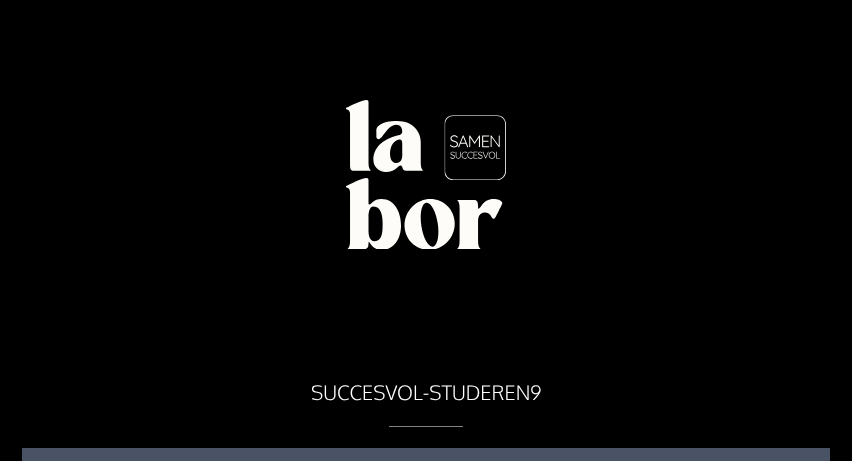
<!DOCTYPE html>
<meta charset="utf-8">
<style>body { margin: 0 } canvas { display: block }</style>
<canvas id="canvas" width="852" height="461"></canvas>
<img id="img1" src="images/1.png" hidden>
<script>
window.onload = function () {
    const canvas = document.getElementById('canvas');
    const context = canvas.getContext('2d');
    context.miterLimit = 4;
    context.fontKerning = 'normal';

    context.fillStyle = 'rgb(0, 0, 0)';
    context.fillRect(0, 0, 852, 461);
    context.drawImage(document.getElementById('img1'), 346, 100, 160, 149);
    context.fillStyle = 'rgb(130, 131, 135)';
    context.fillRect(389, 426, 74, 1);
    context.fillStyle = 'rgb(73, 83, 101)';
    context.fillRect(22, 448, 808, 13);
    context.font = '300 20px Oxygen';
    context.fillStyle = 'rgb(255, 255, 255)';
    context.fillText('SUCCESVOL-STUDEREN9', 311, 400);
};
</script>
